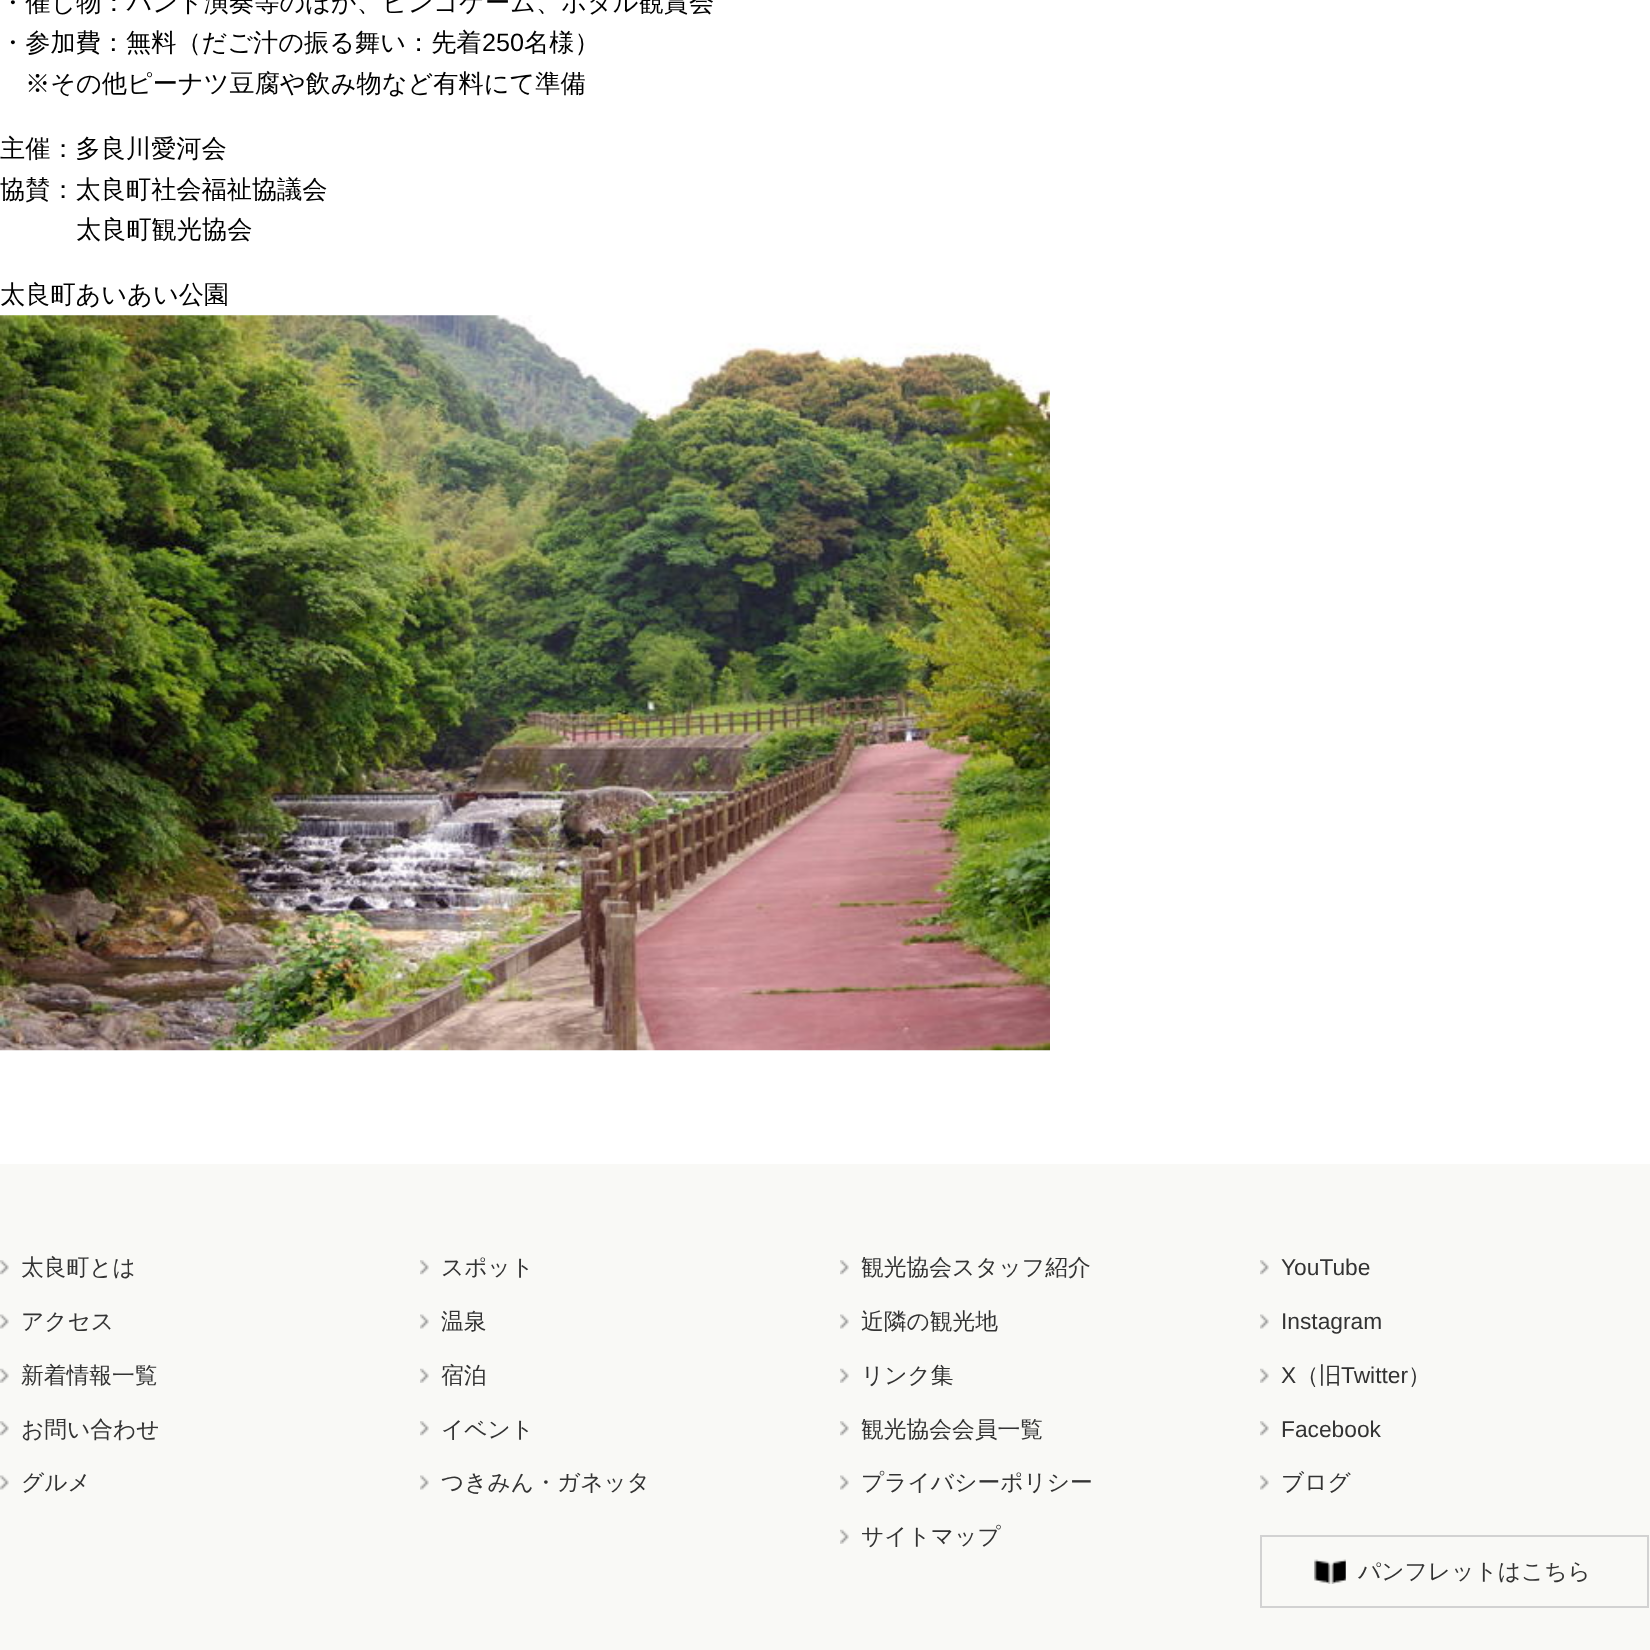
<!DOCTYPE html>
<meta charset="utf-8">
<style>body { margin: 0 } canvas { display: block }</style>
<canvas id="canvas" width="1650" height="1650"></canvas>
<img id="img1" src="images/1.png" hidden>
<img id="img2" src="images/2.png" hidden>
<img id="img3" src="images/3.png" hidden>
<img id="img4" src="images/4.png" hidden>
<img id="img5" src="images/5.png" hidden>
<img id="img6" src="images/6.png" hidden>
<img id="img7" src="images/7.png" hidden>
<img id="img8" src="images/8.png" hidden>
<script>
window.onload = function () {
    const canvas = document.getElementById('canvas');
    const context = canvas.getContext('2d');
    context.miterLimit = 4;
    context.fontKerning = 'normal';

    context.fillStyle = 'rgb(255, 255, 255)';
    context.fillRect(0, 0, 1650, 1650);
    context.drawImage(document.getElementById('img1'), 0, 315, 1050, 736);
    context.fillStyle = 'rgb(249, 249, 246)';
    context.fillRect(0, 1164, 1650, 486);
    context.drawImage(document.getElementById('img2'), 0, 1260, 9, 15);
    context.drawImage(document.getElementById('img3'), 0, 1314, 9, 15);
    context.drawImage(document.getElementById('img4'), 0, 1368, 9, 15);
    context.drawImage(document.getElementById('img2'), 0, 1421, 9, 15);
    context.drawImage(document.getElementById('img3'), 0, 1475, 9, 15);
    context.drawImage(document.getElementById('img5'), 420, 1260, 9, 15);
    context.drawImage(document.getElementById('img6'), 420, 1314, 9, 15);
    context.drawImage(document.getElementById('img7'), 420, 1368, 9, 15);
    context.drawImage(document.getElementById('img5'), 420, 1421, 9, 15);
    context.drawImage(document.getElementById('img6'), 420, 1475, 9, 15);
    context.drawImage(document.getElementById('img5'), 840, 1260, 9, 15);
    context.drawImage(document.getElementById('img6'), 840, 1314, 9, 15);
    context.drawImage(document.getElementById('img7'), 840, 1368, 9, 15);
    context.drawImage(document.getElementById('img5'), 840, 1421, 9, 15);
    context.drawImage(document.getElementById('img6'), 840, 1475, 9, 15);
    context.drawImage(document.getElementById('img7'), 840, 1529, 9, 15);
    context.drawImage(document.getElementById('img2'), 1260, 1260, 9, 15);
    context.drawImage(document.getElementById('img3'), 1260, 1314, 9, 15);
    context.drawImage(document.getElementById('img4'), 1260, 1368, 9, 15);
    context.drawImage(document.getElementById('img2'), 1260, 1421, 9, 15);
    context.drawImage(document.getElementById('img3'), 1260, 1475, 9, 15);
    context.drawImage(document.getElementById('img8'), 1314, 1559, 32, 25);
    context.strokeStyle = 'rgb(210, 210, 210)';
    context.lineWidth = 2;
    context.strokeRect(1261, 1536, 387, 71);
    context.font = '500 25.2px WenQuanYi Zen Hei';
    context.fillStyle = 'rgb(0, 0, 0)';
    context.fillText('・催し物：バンド演奏等のほか、ビンゴゲーム、ホタル観賞会', 0, 11);
    context.fillText('・参加費：無料（だご汁の振る舞い：先着', 0, 51);
    context.font = '25.2px Liberation Sans';
    context.fillText('250', 482, 51);
    context.font = '500 25.2px WenQuanYi Zen Hei';
    context.fillText('名様）', 524, 51);
    context.fillText('※その他ピーナツ豆腐や飲み物など有料にて準備', 25, 92);
    context.fillText('主催：多良川愛河会', 0, 157);
    context.fillText('協賛：太良町社会福祉協議会', 0, 198);
    context.fillText('太良町観光協会', 76, 238);
    context.fillText('太良町あいあい公園', 0, 303);
    context.font = '500 22.75px WenQuanYi Zen Hei';
    context.fillStyle = 'rgb(51, 51, 51)';
    context.fillText('太良町とは', 21, 1275);
    context.fillText('アクセス', 21, 1329);
    context.fillText('新着情報一覧', 21, 1383);
    context.fillText('お問い合わせ', 21, 1437);
    context.fillText('グルメ', 21, 1490);
    context.fillText('スポット', 441, 1275);
    context.fillText('温泉', 441, 1329);
    context.fillText('宿泊', 441, 1383);
    context.fillText('イベント', 441, 1437);
    context.fillText('つきみん・ガネッタ', 441, 1490);
    context.fillText('観光協会スタッフ紹介', 861, 1275);
    context.fillText('近隣の観光地', 861, 1329);
    context.fillText('リンク集', 861, 1383);
    context.fillText('観光協会会員一覧', 861, 1437);
    context.fillText('プライバシーポリシー', 861, 1490);
    context.fillText('サイトマップ', 861, 1544);
    context.font = '22.75px Liberation Sans';
    context.fillText('YouTube', 1281, 1275);
    context.fillText('Instagram', 1281, 1329);
    context.fillText('X', 1281, 1383);
    context.font = '500 22.75px WenQuanYi Zen Hei';
    context.fillText('（旧', 1296, 1383);
    context.font = '22.75px Liberation Sans';
    context.fillText('Twitter', 1341, 1383);
    context.font = '500 22.75px WenQuanYi Zen Hei';
    context.fillText('）', 1408, 1383);
    context.font = '22.75px Liberation Sans';
    context.fillText('Facebook', 1281, 1437);
    context.font = '500 22.75px WenQuanYi Zen Hei';
    context.fillText('ブログ', 1281, 1490);
    context.fillText('パンフレットはこちら', 1358, 1579);
};
</script>
